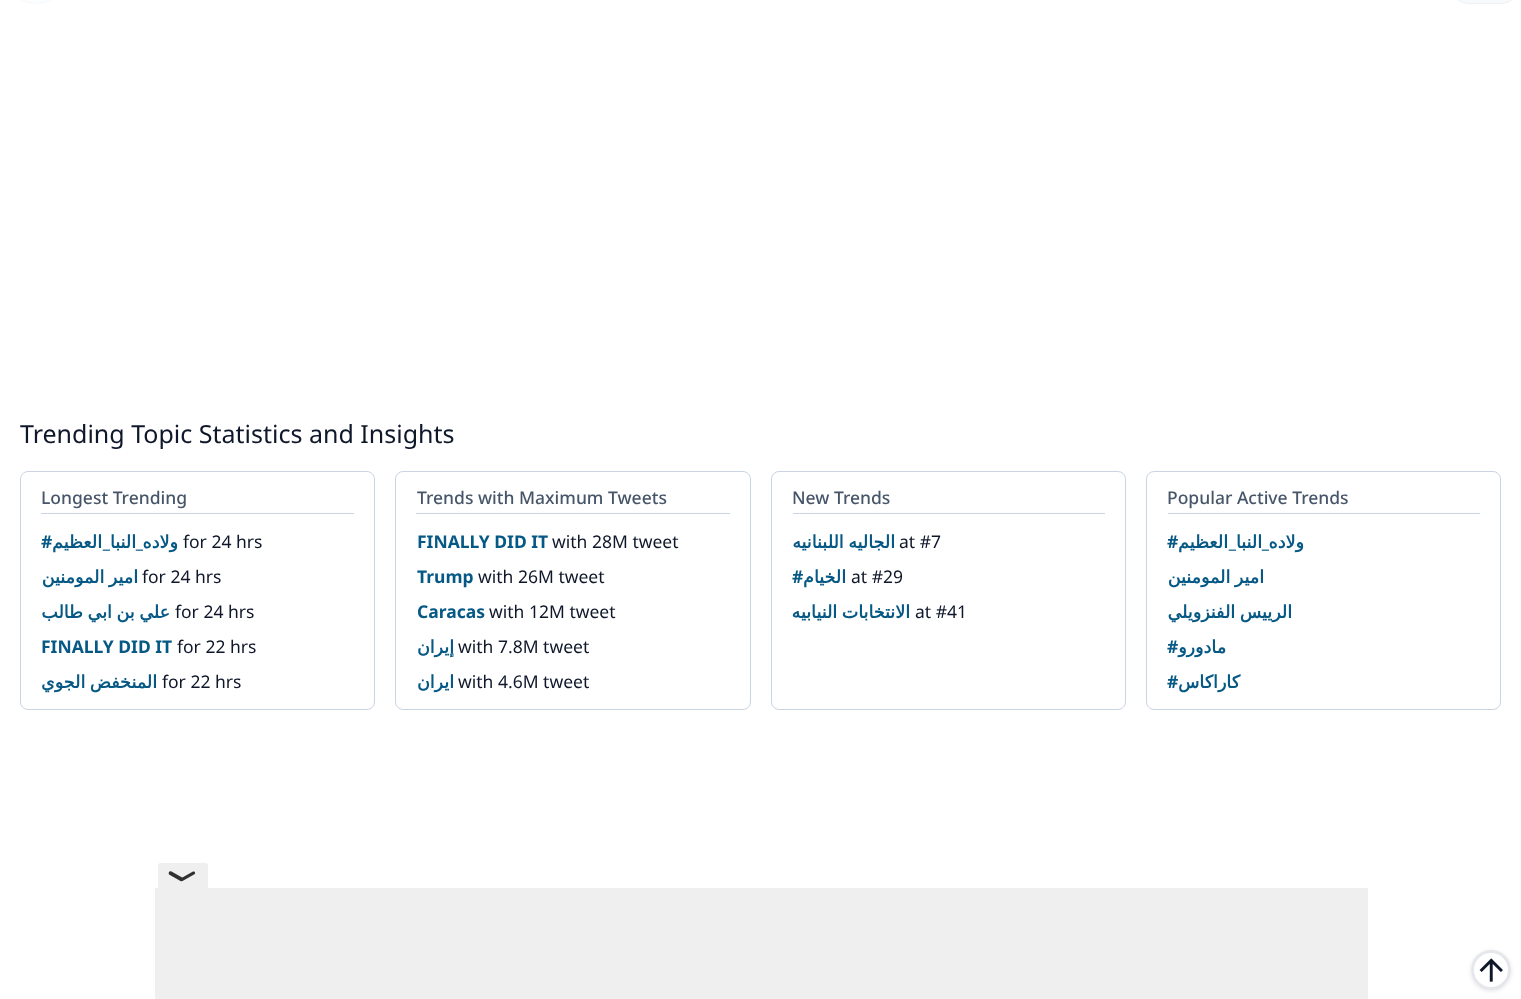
<!DOCTYPE html>
<meta charset="utf-8">
<style>body { margin: 0 } canvas { display: block }</style>
<canvas id="canvas" width="1521" height="999"></canvas>
<img id="img1" src="images/1.png" hidden>
<script>
window.onload = function () {
    const canvas = document.getElementById('canvas');
    const context = canvas.getContext('2d');
    context.miterLimit = 4;
    context.fontKerning = 'normal';

    context.fillStyle = 'rgb(255, 255, 255)';
    context.fillRect(0, 0, 1521, 999);
    context.fillStyle = 'rgb(252, 253, 254)';
    context.beginPath();
    context.moveTo(36, 4);
    context.bezierCurveTo(16, 4, 0, -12, 0, -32);
    context.bezierCurveTo(0, -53, 16, -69, 36, -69);
    context.bezierCurveTo(56, -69, 72, -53, 72, -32);
    context.bezierCurveTo(72, -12, 56, 4, 36, 4);
    context.closePath();
    context.fill();
    context.beginPath();
    context.moveTo(36, 3);
    context.bezierCurveTo(16.5, 3, 0.5, -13, 0.5, -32.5);
    context.bezierCurveTo(0.5, -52, 16.5, -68, 36, -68);
    context.bezierCurveTo(56, -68, 72, -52, 72, -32.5);
    context.bezierCurveTo(72, -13, 56, 3, 36, 3);
    context.closePath();
    context.strokeStyle = 'rgb(249, 250, 252)';
    context.lineWidth = 1.2;
    context.stroke();
    context.fillStyle = 'rgb(247, 249, 251)';
    context.beginPath();
    context.roundRect(1449.5, -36.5, 71, 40, 35.5);
    context.fill();
    context.strokeStyle = 'rgb(238, 241, 246)';
    context.lineWidth = 1;
    context.stroke();
    context.beginPath();
    context.roundRect(20.5, 471.5, 354, 238, 7.5);
    context.strokeStyle = 'rgb(203, 213, 225)';
    context.stroke();
    context.fillStyle = 'rgb(203, 213, 225)';
    context.fillRect(41, 513, 313, 1);
    context.beginPath();
    context.roundRect(395.5, 471.5, 355, 238, 7.5);
    context.stroke();
    context.fillRect(416, 513, 314, 1);
    context.beginPath();
    context.roundRect(771.5, 471.5, 354, 238, 7.5);
    context.stroke();
    context.fillRect(793, 513, 312, 1);
    context.beginPath();
    context.roundRect(1146.5, 471.5, 354, 238, 7.5);
    context.stroke();
    context.fillRect(1168, 513, 312, 1);
    context.fillStyle = 'rgb(239, 239, 239)';
    context.beginPath();
    context.roundRect(158, 863, 50, 25, [2.5, 2.5, 0, 0]);
    context.fill();
    context.fillStyle = 'rgb(49, 49, 49)';
    context.beginPath();
    context.moveTo(171.5, 871.5);
    context.lineTo(183, 878);
    context.bezierCurveTo(184, 880, 182, 882, 180.5, 881);
    context.lineTo(169, 874.5);
    context.bezierCurveTo(168, 872.5, 169.5, 870.5, 171.5, 871.5);
    context.closePath();
    context.fill();
    context.beginPath();
    context.moveTo(181.5, 878);
    context.lineTo(193, 871.5);
    context.bezierCurveTo(195, 871, 196, 873.5, 194, 874.5);
    context.lineTo(182.5, 881);
    context.bezierCurveTo(180.5, 881.5, 180, 878.5, 181.5, 878);
    context.closePath();
    context.fill();
    context.fillStyle = 'rgb(239, 239, 239)';
    context.fillRect(155, 888, 1213, 111);
    context.save();
    context.beginPath();
    context.moveTo(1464, 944);
    context.lineTo(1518, 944);
    context.lineTo(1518, 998);
    context.lineTo(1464, 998);
    context.closePath();
    context.moveTo(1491, 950);
    context.bezierCurveTo(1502, 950, 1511, 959, 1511, 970);
    context.bezierCurveTo(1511, 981, 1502, 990, 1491, 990);
    context.bezierCurveTo(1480, 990, 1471, 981, 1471, 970);
    context.bezierCurveTo(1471, 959, 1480, 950, 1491, 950);
    context.closePath();
    context.clip('evenodd');
    context.fillStyle = 'rgba(0, 0, 0, 0.1)';
    context.filter = 'blur(2px)';
    context.beginPath();
    context.roundRect(1471, 951, 40, 40, 20);
    context.fill();
    context.filter = 'none';
    context.restore();
    context.beginPath();
    context.arc(1491, 970, 18.5, 0, 2 * Math.PI);
    context.strokeStyle = 'rgb(229, 231, 235)';
    context.lineWidth = 3;
    context.stroke();
    context.drawImage(document.getElementById('img1'), 1479, 958, 24, 24);
    context.font = '25px Noto Sans';
    context.fillStyle = 'rgb(15, 23, 42)';
    context.fillText('Trending Topic Statistics and Insights', 20, 443);
    context.font = '500 17.5px Noto Sans';
    context.fillStyle = 'rgb(71, 85, 105)';
    context.fillText('Longest Trending', 41, 504);
    context.font = 'bold 17.5px Noto Sans';
    context.fillStyle = 'rgb(7, 89, 133)';
    context.fillText('#', 41, 548);
    context.direction = 'rtl';
    context.font = 'bold 17.5px DejaVu Sans';
    context.fillText('العظيم', 102, 548);
    context.fillText('النبا', 136, 548);
    context.fillText('ولاده', 178, 548);
    context.direction = 'ltr';
    context.font = '17.5px Noto Sans';
    context.fillStyle = 'rgb(15, 23, 42)';
    context.fillText('for 24 hrs', 183, 548);
    context.direction = 'rtl';
    context.font = 'bold 17.5px Noto Sans';
    context.fillStyle = 'rgb(7, 89, 133)';
    context.fillText('_', 110, 548);
    context.fillText('_', 143, 548);
    context.wordSpacing = '-1px';
    context.font = 'bold 17.5px DejaVu Sans';
    context.fillText('امير المومنين', 138, 583);
    context.wordSpacing = '0px';
    context.direction = 'ltr';
    context.font = '17.5px Noto Sans';
    context.fillStyle = 'rgb(15, 23, 42)';
    context.fillText('for 24 hrs', 142, 583);
    context.wordSpacing = '-1px';
    context.direction = 'rtl';
    context.font = 'bold 17.5px DejaVu Sans';
    context.fillStyle = 'rgb(7, 89, 133)';
    context.fillText('علي بن ابي طالب', 170, 618);
    context.wordSpacing = '0px';
    context.direction = 'ltr';
    context.font = '17.5px Noto Sans';
    context.fillStyle = 'rgb(15, 23, 42)';
    context.fillText('for 24 hrs', 175, 618);
    context.font = 'bold 17.5px Noto Sans';
    context.fillStyle = 'rgb(7, 89, 133)';
    context.fillText('FINALLY DID IT', 41, 653);
    context.font = '17.5px Noto Sans';
    context.fillStyle = 'rgb(15, 23, 42)';
    context.fillText('for 22 hrs', 177, 653);
    context.wordSpacing = '-1px';
    context.direction = 'rtl';
    context.font = 'bold 17.5px DejaVu Sans';
    context.fillStyle = 'rgb(7, 89, 133)';
    context.fillText('المنخفض الجوي', 157, 688);
    context.wordSpacing = '0px';
    context.direction = 'ltr';
    context.font = '17.5px Noto Sans';
    context.fillStyle = 'rgb(15, 23, 42)';
    context.fillText('for 22 hrs', 162, 688);
    context.font = '500 17.5px Noto Sans';
    context.fillStyle = 'rgb(71, 85, 105)';
    context.fillText('Trends with Maximum Tweets', 417, 504);
    context.font = 'bold 17.5px Noto Sans';
    context.fillStyle = 'rgb(7, 89, 133)';
    context.fillText('FINALLY DID IT', 417, 548);
    context.font = '17.5px Noto Sans';
    context.fillStyle = 'rgb(15, 23, 42)';
    context.fillText('with 28M tweet', 552, 548);
    context.font = 'bold 17.5px Noto Sans';
    context.fillStyle = 'rgb(7, 89, 133)';
    context.fillText('Trump', 417, 583);
    context.font = '17.5px Noto Sans';
    context.fillStyle = 'rgb(15, 23, 42)';
    context.fillText('with 26M tweet', 478, 583);
    context.font = 'bold 17.5px Noto Sans';
    context.fillStyle = 'rgb(7, 89, 133)';
    context.fillText('Caracas', 417, 618);
    context.font = '17.5px Noto Sans';
    context.fillStyle = 'rgb(15, 23, 42)';
    context.fillText('with 12M tweet', 489, 618);
    context.direction = 'rtl';
    context.font = 'bold 17.5px DejaVu Sans';
    context.fillStyle = 'rgb(7, 89, 133)';
    context.fillText('إيران', 454, 653);
    context.direction = 'ltr';
    context.font = '17.5px Noto Sans';
    context.fillStyle = 'rgb(15, 23, 42)';
    context.fillText('with 7.8M tweet', 458, 653);
    context.direction = 'rtl';
    context.font = 'bold 17.5px DejaVu Sans';
    context.fillStyle = 'rgb(7, 89, 133)';
    context.fillText('ايران', 454, 688);
    context.direction = 'ltr';
    context.font = '17.5px Noto Sans';
    context.fillStyle = 'rgb(15, 23, 42)';
    context.fillText('with 4.6M tweet', 458, 688);
    context.font = '500 17.5px Noto Sans';
    context.fillStyle = 'rgb(71, 85, 105)';
    context.fillText('New Trends', 792, 504);
    context.wordSpacing = '-1px';
    context.direction = 'rtl';
    context.font = 'bold 17.5px DejaVu Sans';
    context.fillStyle = 'rgb(7, 89, 133)';
    context.fillText('الجاليه اللبنانيه', 895, 548);
    context.wordSpacing = '0px';
    context.direction = 'ltr';
    context.font = '17.5px Noto Sans';
    context.fillStyle = 'rgb(15, 23, 42)';
    context.fillText('at #7', 899, 548);
    context.font = 'bold 17.5px Noto Sans';
    context.fillStyle = 'rgb(7, 89, 133)';
    context.fillText('#', 792, 583);
    context.direction = 'rtl';
    context.font = 'bold 17.5px DejaVu Sans';
    context.fillText('الخيام', 846, 583);
    context.direction = 'ltr';
    context.font = '17.5px Noto Sans';
    context.fillStyle = 'rgb(15, 23, 42)';
    context.fillText('at #29', 851, 583);
    context.wordSpacing = '-1px';
    context.direction = 'rtl';
    context.font = 'bold 17.5px DejaVu Sans';
    context.fillStyle = 'rgb(7, 89, 133)';
    context.fillText('الانتخابات النيابيه', 910, 618);
    context.wordSpacing = '0px';
    context.direction = 'ltr';
    context.font = '17.5px Noto Sans';
    context.fillStyle = 'rgb(15, 23, 42)';
    context.fillText('at #41', 915, 618);
    context.font = '500 17.5px Noto Sans';
    context.fillStyle = 'rgb(71, 85, 105)';
    context.fillText('Popular Active Trends', 1167, 504);
    context.font = 'bold 17.5px Noto Sans';
    context.fillStyle = 'rgb(7, 89, 133)';
    context.fillText('#', 1167, 548);
    context.direction = 'rtl';
    context.font = 'bold 17.5px DejaVu Sans';
    context.fillText('العظيم', 1228, 548);
    context.fillText('النبا', 1262, 548);
    context.fillText('ولاده', 1304, 548);
    context.font = 'bold 17.5px Noto Sans';
    context.fillText('_', 1236, 548);
    context.fillText('_', 1269, 548);
    context.wordSpacing = '-1px';
    context.font = 'bold 17.5px DejaVu Sans';
    context.fillText('امير المومنين', 1264, 583);
    context.fillText('الرييس الفنزويلي', 1292, 618);
    context.wordSpacing = '0px';
    context.direction = 'ltr';
    context.font = 'bold 17.5px Noto Sans';
    context.fillText('#', 1167, 653);
    context.direction = 'rtl';
    context.font = 'bold 17.5px DejaVu Sans';
    context.fillText('مادورو', 1226, 653);
    context.direction = 'ltr';
    context.font = 'bold 17.5px Noto Sans';
    context.fillText('#', 1167, 688);
    context.direction = 'rtl';
    context.font = 'bold 17.5px DejaVu Sans';
    context.fillText('كاراكاس', 1240, 688);
};
</script>
